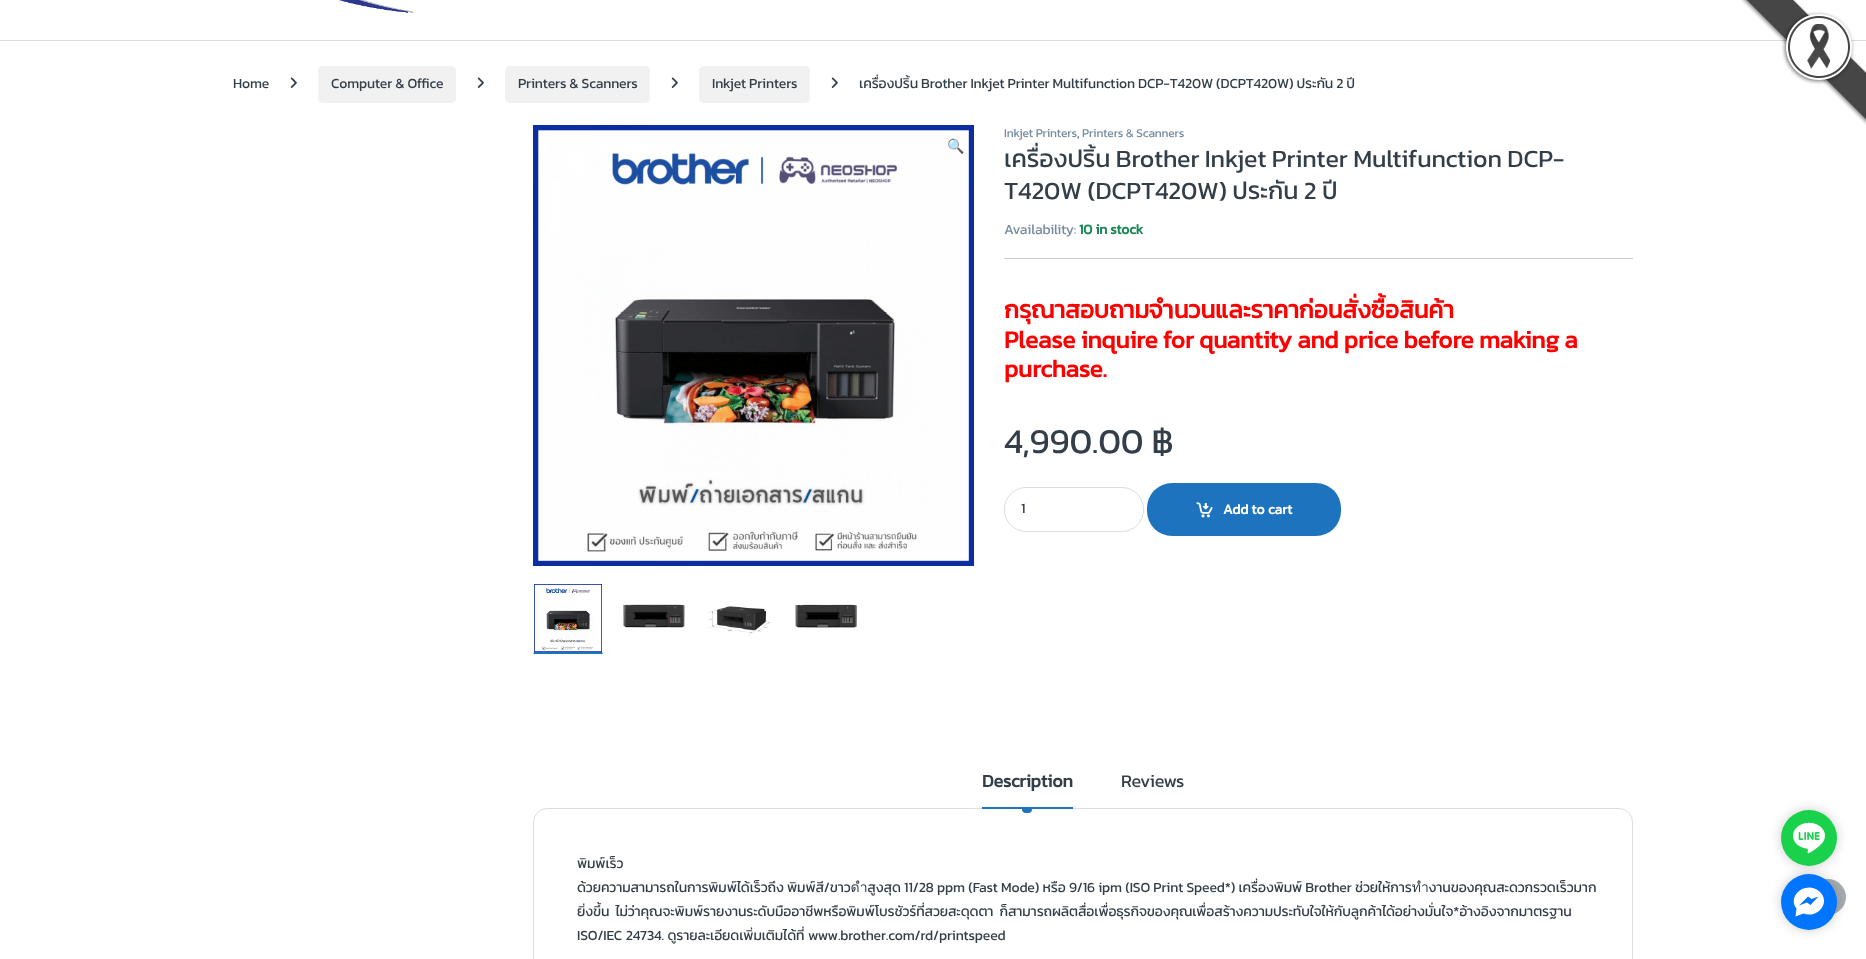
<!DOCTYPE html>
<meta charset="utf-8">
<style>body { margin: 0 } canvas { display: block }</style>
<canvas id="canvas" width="1866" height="959"></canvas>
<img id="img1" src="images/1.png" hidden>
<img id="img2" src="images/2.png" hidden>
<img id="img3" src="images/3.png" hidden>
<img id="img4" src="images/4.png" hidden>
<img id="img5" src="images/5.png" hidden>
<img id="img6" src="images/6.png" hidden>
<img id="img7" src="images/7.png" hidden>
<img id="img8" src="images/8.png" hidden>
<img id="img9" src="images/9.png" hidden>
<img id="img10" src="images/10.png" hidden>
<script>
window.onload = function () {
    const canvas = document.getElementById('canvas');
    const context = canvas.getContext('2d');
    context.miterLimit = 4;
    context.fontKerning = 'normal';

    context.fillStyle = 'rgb(255, 255, 255)';
    context.fillRect(0, 0, 1866, 959);
    context.fillStyle = 'rgb(221, 221, 221)';
    context.fillRect(0, 40, 1866, 1);
    context.drawImage(document.getElementById('img1'), 338, 0, 76, 13);
    context.drawImage(document.getElementById('img2'), 290, 77, 7, 11);
    context.fillStyle = 'rgb(241, 241, 241)';
    context.beginPath();
    context.roundRect(318, 66, 138, 37, 5);
    context.fill();
    context.drawImage(document.getElementById('img2'), 477, 77, 7, 11);
    context.beginPath();
    context.roundRect(505, 66, 145, 37, 5);
    context.fill();
    context.drawImage(document.getElementById('img2'), 671, 77, 7, 11);
    context.beginPath();
    context.roundRect(699, 66, 111, 37, 5);
    context.fill();
    context.drawImage(document.getElementById('img2'), 831, 77, 7, 11);
    context.drawImage(document.getElementById('img3'), 533, 125, 441, 441);
    context.fillStyle = 'rgb(30, 115, 190)';
    context.beginPath();
    context.moveTo(603, 654);
    context.lineTo(533, 654);
    context.lineTo(534, 652);
    context.lineTo(602, 652);
    context.closePath();
    context.fill();
    context.fillStyle = 'rgb(255, 255, 255)';
    context.beginPath();
    context.moveTo(533, 654);
    context.lineTo(533, 583);
    context.lineTo(534, 584);
    context.lineTo(534, 652);
    context.closePath();
    context.fill();
    context.drawImage(document.getElementById('img4'), 534, 584, 68, 68);
    context.drawImage(document.getElementById('img5'), 623, 604, 62, 24);
    context.drawImage(document.getElementById('img6'), 708, 606, 64, 30);
    context.drawImage(document.getElementById('img7'), 795, 604, 62, 24);
    context.fillStyle = 'rgb(204, 207, 209)';
    context.fillRect(1004, 258, 629, 1);
    context.beginPath();
    context.roundRect(1004.5, 487.5, 139, 44, 21.5);
    context.strokeStyle = 'rgb(221, 221, 221)';
    context.stroke();
    context.fillStyle = 'rgb(30, 115, 190)';
    context.beginPath();
    context.roundRect(1147, 483, 194, 53, 25);
    context.fill();
    context.drawImage(document.getElementById('img8'), 1196, 502, 17, 16);
    context.beginPath();
    context.roundRect(533.5, 808.5, 1099, 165, 13.5);
    context.stroke();
    context.fillRect(982, 807, 91, 2);
    context.beginPath();
    context.roundRect(1022, 809, 10, 4, [0, 0, 4, 4]);
    context.fill();
    context.drawImage(document.getElementById('img9'), 1741, 0, 125, 125);
    context.fillStyle = 'rgb(167, 172, 177)';
    context.beginPath();
    context.arc(1828, 897, 17.5, 0, 2 * Math.PI);
    context.fill();
    context.strokeStyle = 'rgb(167, 172, 177)';
    context.stroke();
    context.fillStyle = 'rgba(0, 0, 0, 0.2)';
    context.filter = 'blur(6px)';
    context.beginPath();
    context.roundRect(1781, 810, 56, 56, 28);
    context.fill();
    context.filter = 'none';
    context.fillStyle = 'rgb(26, 209, 76)';
    context.beginPath();
    context.arc(1809, 838, 28, 0, 2 * Math.PI);
    context.fill();
    context.drawImage(document.getElementById('img10'), 1793, 822, 32, 32);
    context.fillStyle = 'rgba(0, 0, 0, 0.2)';
    context.filter = 'blur(6px)';
    context.beginPath();
    context.roundRect(1781, 874, 56, 56, 28);
    context.fill();
    context.filter = 'none';
    context.fillStyle = 'rgb(0, 117, 255)';
    context.beginPath();
    context.arc(1809, 902, 28, 0, 2 * Math.PI);
    context.fill();
    context.fillStyle = 'rgb(255, 255, 255)';
    context.beginPath();
    context.moveTo(1819.5, 891.5);
    context.bezierCurveTo(1807, 880, 1786.5, 895, 1796.5, 908.5);
    context.lineTo(1795.5, 916.5);
    context.lineTo(1803.5, 913.5);
    context.bezierCurveTo(1817.5, 919, 1831.5, 902.5, 1819.5, 891.5);
    context.closePath();
    context.moveTo(1810.5, 905);
    context.lineTo(1807, 902.5);
    context.lineTo(1799, 905.5);
    context.lineTo(1808, 896.5);
    context.lineTo(1811.5, 899);
    context.lineTo(1818.5, 896.5);
    context.closePath();
    context.fill();
    context.letterSpacing = '-0.14px';
    context.font = '14px Kanit';
    context.fillStyle = 'rgb(51, 62, 72)';
    context.fillText('Home', 233, 88);
    context.fillText('Computer & Office', 331, 88);
    context.fillText('Printers & Scanners', 518, 88);
    context.fillText('Inkjet Printers', 712, 88);
    context.fillText('เครื่องปริ้น Brother Inkjet Printer Multifunction DCP-T420W (DCPT420W) ประกัน 2 ปี', 859, 88);
    context.font = '14px Noto Color Emoji';
    context.fillText('🔍', 947, 151);
    context.font = '12px Kanit';
    context.fillStyle = 'rgb(118, 139, 158)';
    context.fillText('Inkjet Printers', 1004, 137);
    context.fillStyle = 'rgb(51, 62, 72)';
    context.fillText(',', 1077, 137);
    context.fillStyle = 'rgb(118, 139, 158)';
    context.fillText('Printers & Scanners', 1082, 137);
    context.font = '25px Kanit';
    context.fillStyle = 'rgb(51, 62, 72)';
    context.fillText('เครื่องปริ้น Brother Inkjet Printer Multifunction DCP-', 1004, 167);
    context.fillText('T420W (DCPT420W) ประกัน 2 ปี', 1004, 199);
    context.font = '14px Kanit';
    context.fillStyle = 'rgb(118, 139, 158)';
    context.fillText('Availability:', 1004, 234);
    context.font = 'bold 14px Kanit';
    context.fillStyle = 'rgb(25, 135, 84)';
    context.fillText('10 in stock', 1079, 234);
    context.font = 'bold 24.5px Kanit';
    context.fillStyle = 'rgb(255, 0, 0)';
    context.fillText('กรุณาสอบถามจำนวนและราคาก่อนสั่งซื้อสินค้า', 1004, 318);
    context.fillText('Please inquire for quantity and price before making a', 1004, 348);
    context.fillText('purchase.', 1004, 377);
    context.font = '35px Kanit';
    context.fillStyle = 'rgb(51, 62, 72)';
    context.fillText('4,990.00 ฿', 1004, 453);
    context.letterSpacing = '0px';
    context.font = '14px Kanit';
    context.fillText('1', 1021, 513);
    context.font = 'bold 14px Kanit';
    context.fillStyle = 'rgb(255, 255, 255)';
    context.fillText('Add to cart', 1223, 514);
    context.letterSpacing = '-0.14px';
    context.font = 'bold 18px Kanit';
    context.fillStyle = 'rgb(51, 62, 72)';
    context.fillText('Description', 982, 787);
    context.font = '18px Kanit';
    context.fillText('Reviews', 1121, 787);
    context.font = '14px Kanit';
    context.fillText('พิมพ์เร็ว', 577, 868);
    context.wordSpacing = '0.25px';
    context.fillText('ด้วยความสามารถในการพิมพ์ได้เร็วถึง พิมพ์สี/ขาวดำสูงสุด 11/28 ppm (Fast Mode) หรือ 9/16 ipm (ISO Print Speed*) เครื่องพิมพ์ Brother ช่วยให้การทำงานของคุณสะดวกรวดเร็วมาก', 577, 892);
    context.wordSpacing = '3px';
    context.fillText('ยิ่งขึ้น ไม่ว่าคุณจะพิมพ์รายงานระดับมืออาชีพหรือพิมพ์โบรชัวร์ที่สวยสะดุดตา ก็สามารถผลิตสื่อเพื่อธุรกิจของคุณเพื่อสร้างความประทับใจให้กับลูกค้าได้อย่างมั่นใจ*อ้างอิงจากมาตรฐาน', 577, 916);
    context.wordSpacing = '0.5px';
    context.fillText('ISO/IEC 24734. ดูรายละเอียดเพิ่มเติมได้ที่ www.brother.com/rd/printspeed', 577, 940);
};
</script>
